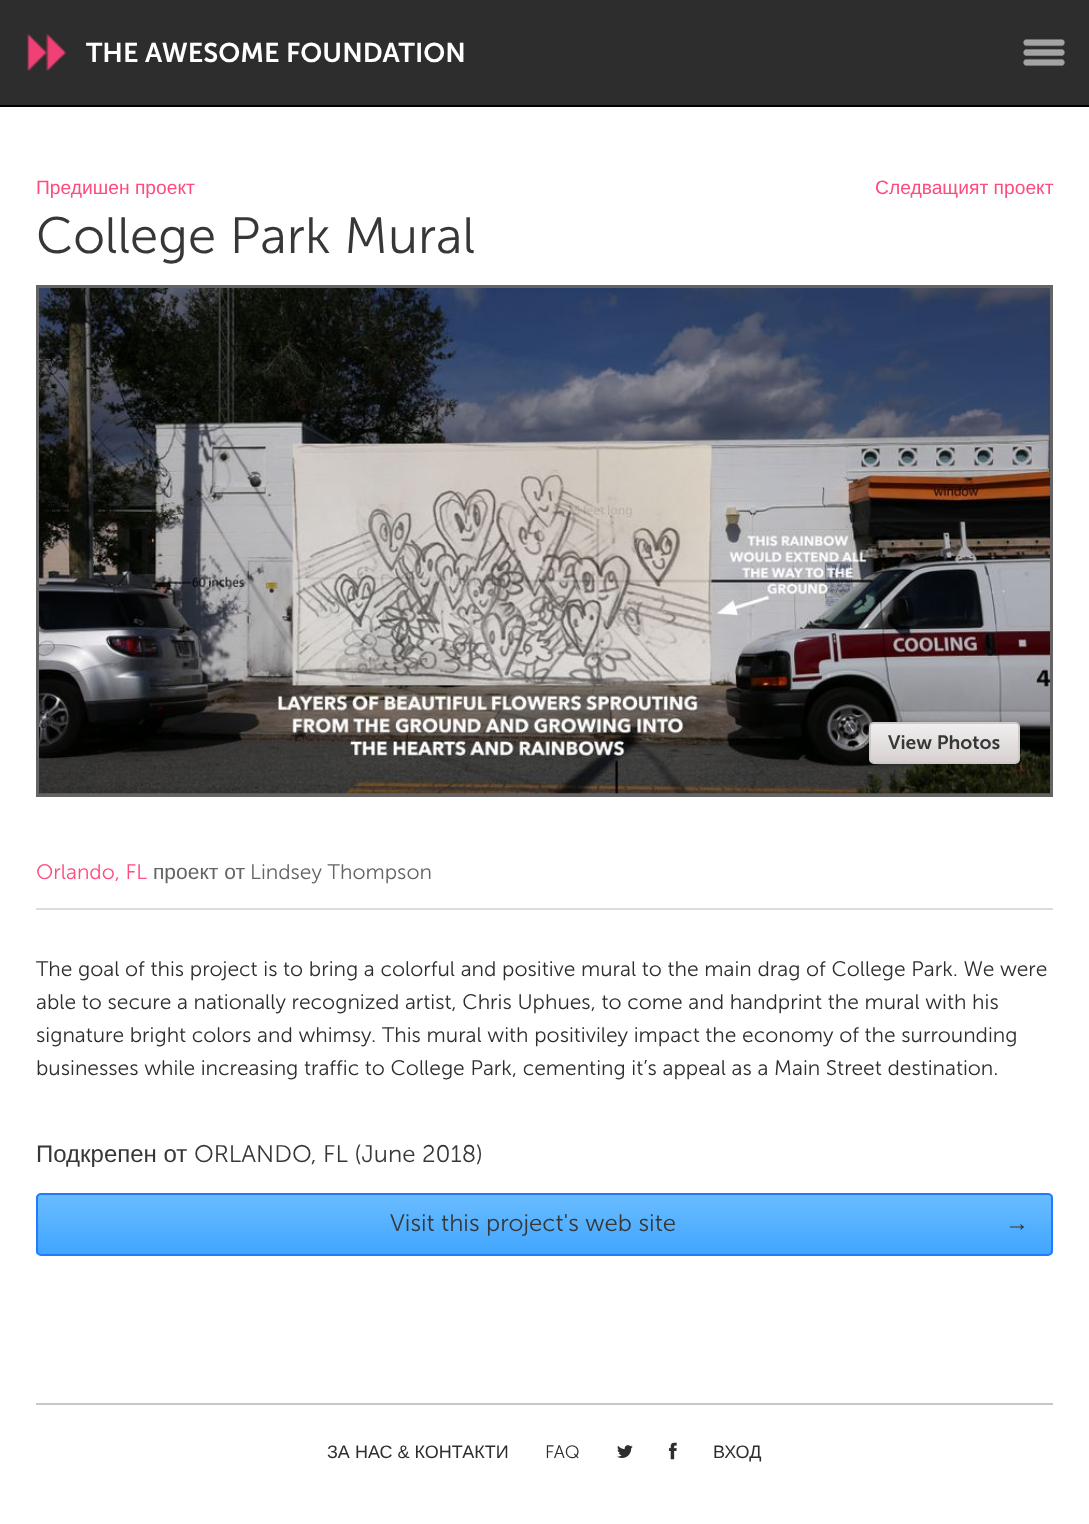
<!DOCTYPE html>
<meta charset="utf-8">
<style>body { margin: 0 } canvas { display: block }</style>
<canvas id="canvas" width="1089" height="1524"></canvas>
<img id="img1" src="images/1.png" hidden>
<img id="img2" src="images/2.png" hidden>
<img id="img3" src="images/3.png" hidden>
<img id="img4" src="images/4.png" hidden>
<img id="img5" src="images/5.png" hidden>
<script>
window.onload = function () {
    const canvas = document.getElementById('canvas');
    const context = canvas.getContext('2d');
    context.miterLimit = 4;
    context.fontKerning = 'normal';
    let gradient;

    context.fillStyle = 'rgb(255, 255, 255)';
    context.fillRect(0, 0, 1089, 1524);
    context.fillStyle = 'rgb(45, 45, 45)';
    context.fillRect(0, 0, 1089, 105);
    context.fillStyle = 'rgb(0, 0, 0)';
    context.fillRect(0, 105, 1089, 2);
    context.drawImage(document.getElementById('img1'), 26, 34, 41, 37);
    context.drawImage(document.getElementById('img2'), 1023, 39, 42, 27);
    context.fillStyle = 'rgb(100, 100, 100)';
    context.fillRect(36, 285, 1017, 512);
    context.drawImage(document.getElementById('img3'), 39, 288, 1011, 506);
    gradient = context.createLinearGradient(944, 723, 944, 762);
    gradient.addColorStop(0, 'rgb(240, 240, 240)');
    gradient.addColorStop(1, 'rgb(216, 208, 208)');
    context.fillStyle = gradient;
    context.beginPath();
    context.roundRect(870, 723, 149, 39, 3);
    context.fill();
    context.fillStyle = 'rgb(255, 255, 255)';
    context.beginPath();
    context.moveTo(873, 724);
    context.lineTo(992, 724);
    context.bezierCurveTo(1020, 724, 1018, 718, 1018, 739);
    context.lineTo(1018, 761);
    context.bezierCurveTo(1019, 761, 1019, 760, 1019, 759);
    context.lineTo(1019, 726);
    context.bezierCurveTo(1019, 724, 1018, 723, 1016, 723);
    context.lineTo(873, 723);
    context.bezierCurveTo(871, 723, 870, 724, 870, 726);
    context.lineTo(870, 728);
    context.bezierCurveTo(870, 726, 871, 724, 873, 724);
    context.closePath();
    context.fill();
    context.beginPath();
    context.roundRect(870, 723, 149, 40, 4);
    context.strokeStyle = 'rgb(209, 200, 200)';
    context.lineWidth = 2;
    context.stroke();
    context.fillStyle = 'rgb(220, 220, 220)';
    context.fillRect(36, 908, 1017, 2);
    context.save();
    context.beginPath();
    context.roundRect(36, 1193, 1017, 63, 5);
    context.clip();
    gradient = context.createLinearGradient(545, 1194, 545, 1254);
    gradient.addColorStop(0, 'rgb(106, 189, 255)');
    gradient.addColorStop(1, 'rgb(65, 165, 255)');
    context.fillStyle = gradient;
    context.fillRect(36, 1194, 1017, 60);
    context.restore();
    context.beginPath();
    context.roundRect(37, 1194, 1015, 61, 4);
    context.strokeStyle = 'rgb(34, 122, 255)';
    context.stroke();
    context.fillStyle = 'rgb(200, 200, 200)';
    context.fillRect(36, 1403, 1017, 2);
    context.drawImage(document.getElementById('img4'), 617, 1445, 16, 13);
    context.drawImage(document.getElementById('img5'), 669, 1442, 8, 18);
    context.font = '600 27px "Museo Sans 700"';
    context.fillStyle = 'rgb(255, 255, 255)';
    context.fillText('THE AWESOME FOUNDATION', 86, 62);
    context.font = '19.25px Liberation Sans';
    context.fillStyle = 'rgb(255, 75, 126)';
    context.fillText('Предишен проект', 36, 194);
    context.fillText('Следващият проект', 875, 194);
    context.font = '300 51px "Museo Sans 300"';
    context.fillStyle = 'rgb(55, 55, 55)';
    context.fillText('College Park Mural', 36, 253);
    context.font = '600 19.25px "Museo Sans 700"';
    context.fillText('View Photos', 888, 749);
    context.font = '300 21px "Museo Sans 300"';
    context.fillStyle = 'rgb(255, 75, 126)';
    context.fillText('Orlando, FL', 36, 879);
    context.font = '21px Liberation Sans';
    context.fillStyle = 'rgb(100, 100, 100)';
    context.fillText('проект от', 153, 879);
    context.font = '300 21px "Museo Sans 300"';
    context.fillText('Lindsey Thompson', 250, 879);
    context.fillStyle = 'rgb(46, 46, 46)';
    context.fillText('The goal of this project is to bring a colorful and positive mural to the main drag of College Park. We were', 36, 976);
    context.fillText('able to secure a nationally recognized artist, Chris Uphues, to come and handprint the mural with his', 36, 1009);
    context.fillText('signature bright colors and whimsy. This mural with positiviley impact the economy of the surrounding', 36, 1042);
    context.fillText('businesses while increasing traffic to College Park, cementing it’s appeal as a Main Street destination.', 36, 1075);
    context.font = '24px Liberation Sans';
    context.fillStyle = 'rgb(55, 55, 55)';
    context.fillText('Подкрепен от', 36, 1162);
    context.font = '300 24px "Museo Sans 300"';
    context.fillText('ORLANDO, FL (June 2018)', 194, 1162);
    context.fillText('Visit this project\'s web site', 390, 1231);
    context.font = '24px Liberation Sans';
    context.fillText('→', 1005, 1231);
    context.font = '18px Liberation Sans';
    context.fillStyle = 'rgb(46, 46, 46)';
    context.fillText('ЗА НАС & КОНТАКТИ', 327, 1458);
    context.font = '300 18px "Museo Sans 300"';
    context.fillText('FAQ', 545, 1458);
    context.font = '18px Liberation Sans';
    context.fillText('ВХОД', 713, 1458);
};
</script>
